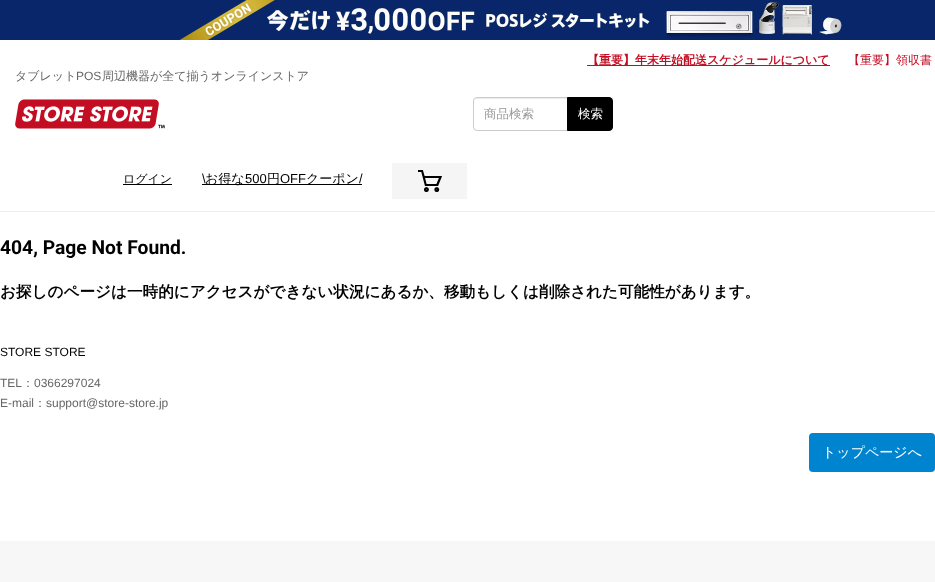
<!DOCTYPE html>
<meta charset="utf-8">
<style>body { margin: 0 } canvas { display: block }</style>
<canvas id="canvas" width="935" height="582"></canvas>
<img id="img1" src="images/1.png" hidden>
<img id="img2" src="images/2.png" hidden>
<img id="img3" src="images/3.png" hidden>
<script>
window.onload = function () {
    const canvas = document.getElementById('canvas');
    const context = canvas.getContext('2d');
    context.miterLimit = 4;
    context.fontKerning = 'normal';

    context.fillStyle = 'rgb(255, 255, 255)';
    context.fillRect(0, 0, 935, 582);
    context.fillStyle = 'rgb(9, 38, 106)';
    context.fillRect(0, 0, 935, 40);
    context.drawImage(document.getElementById('img1'), 179, 0, 664, 40);
    context.fillStyle = 'rgb(195, 13, 35)';
    context.fillRect(587, 65, 243, 1);
    context.drawImage(document.getElementById('img2'), 15, 99, 150, 30);
    context.fillStyle = 'rgb(236, 236, 236)';
    context.beginPath();
    context.moveTo(477, 99);
    context.lineTo(567, 99);
    context.lineTo(567, 98);
    context.lineTo(477, 98);
    context.bezierCurveTo(475, 98, 474, 99, 474, 101);
    context.lineTo(474, 102);
    context.bezierCurveTo(474, 100, 475, 99, 477, 99);
    context.closePath();
    context.fill();
    context.beginPath();
    context.roundRect(473.5, 97.5, 94, 33, [3.5, 0, 0, 3.5]);
    context.strokeStyle = 'rgb(204, 204, 204)';
    context.stroke();
    context.fillStyle = 'rgb(0, 0, 0)';
    context.beginPath();
    context.roundRect(567.5, 97.5, 45, 33, [0, 3.5, 3.5, 0]);
    context.fill();
    context.strokeStyle = 'rgb(0, 0, 0)';
    context.stroke();
    context.fillRect(123, 184, 49, 1);
    context.fillRect(202, 184, 160, 1);
    context.fillStyle = 'rgb(245, 245, 245)';
    context.fillRect(392, 163, 75, 36);
    context.drawImage(document.getElementById('img3'), 418, 170, 24, 22);
    context.fillStyle = 'rgb(237, 237, 237)';
    context.fillRect(0, 211, 935, 1);
    context.fillStyle = 'rgb(0, 132, 207)';
    context.beginPath();
    context.roundRect(809, 433, 126, 39, 4);
    context.fill();
    context.fillStyle = 'rgb(247, 247, 247)';
    context.fillRect(0, 541, 935, 41);
    context.font = 'bold 12px WenQuanYi Zen Hei';
    context.fillStyle = 'rgb(195, 13, 35)';
    context.fillText('【重要】年末年始配送スケジュールについて', 587, 64);
    context.font = '500 12px WenQuanYi Zen Hei';
    context.fillText('【重要】領収書', 848, 64);
    context.fillStyle = 'rgb(102, 102, 102)';
    context.fillText('タブレット', 15, 80);
    context.font = '12px Liberation Sans';
    context.fillText('POS', 76, 80);
    context.font = '500 12px WenQuanYi Zen Hei';
    context.fillText('周辺機器が全て揃うオンラインストア', 102, 80);
    context.font = '500 12.5px WenQuanYi Zen Hei';
    context.fillStyle = 'rgb(153, 153, 153)';
    context.fillText('商品検索', 484, 118);
    context.fillStyle = 'rgb(255, 255, 255)';
    context.fillText('検索', 578, 118);
    context.font = '500 12px WenQuanYi Zen Hei';
    context.fillStyle = 'rgb(0, 0, 0)';
    context.fillText('ログイン', 123, 183);
    context.font = '13px Liberation Sans';
    context.fillText('\\', 202, 183);
    context.font = '500 13px WenQuanYi Zen Hei';
    context.fillText('お得な', 205, 183);
    context.font = '13px Liberation Sans';
    context.fillText('500', 245, 183);
    context.font = '500 13px WenQuanYi Zen Hei';
    context.fillText('円', 267, 183);
    context.font = '13px Liberation Sans';
    context.fillText('OFF', 280, 183);
    context.font = '500 13px WenQuanYi Zen Hei';
    context.fillText('クーポン', 306, 183);
    context.font = '13px Liberation Sans';
    context.fillText('/', 359, 183);
    context.font = 'bold 19.25px Roboto';
    context.fillText('404, Page Not Found.', 0, 254);
    context.font = 'bold 15.6px WenQuanYi Zen Hei';
    context.fillText('お探しのページは一時的にアクセスができない状況にあるか、移動もしくは削除された可能性があります。', 0, 297);
    context.font = '12px Liberation Sans';
    context.fillText('STORE STORE', 0, 356);
    context.fillStyle = 'rgb(102, 102, 102)';
    context.fillText('TEL', 0, 387);
    context.font = '500 12px WenQuanYi Zen Hei';
    context.fillText('：', 22, 387);
    context.font = '12px Liberation Sans';
    context.fillText('0366297024', 34, 387);
    context.fillText('E-mail', 0, 407);
    context.font = '500 12px WenQuanYi Zen Hei';
    context.fillText('：', 34, 407);
    context.font = '12px Liberation Sans';
    context.fillText('support@store-store.jp', 46, 407);
    context.font = '500 14px WenQuanYi Zen Hei';
    context.fillStyle = 'rgb(255, 255, 255)';
    context.fillText('トップページへ', 822, 457);
};
</script>
